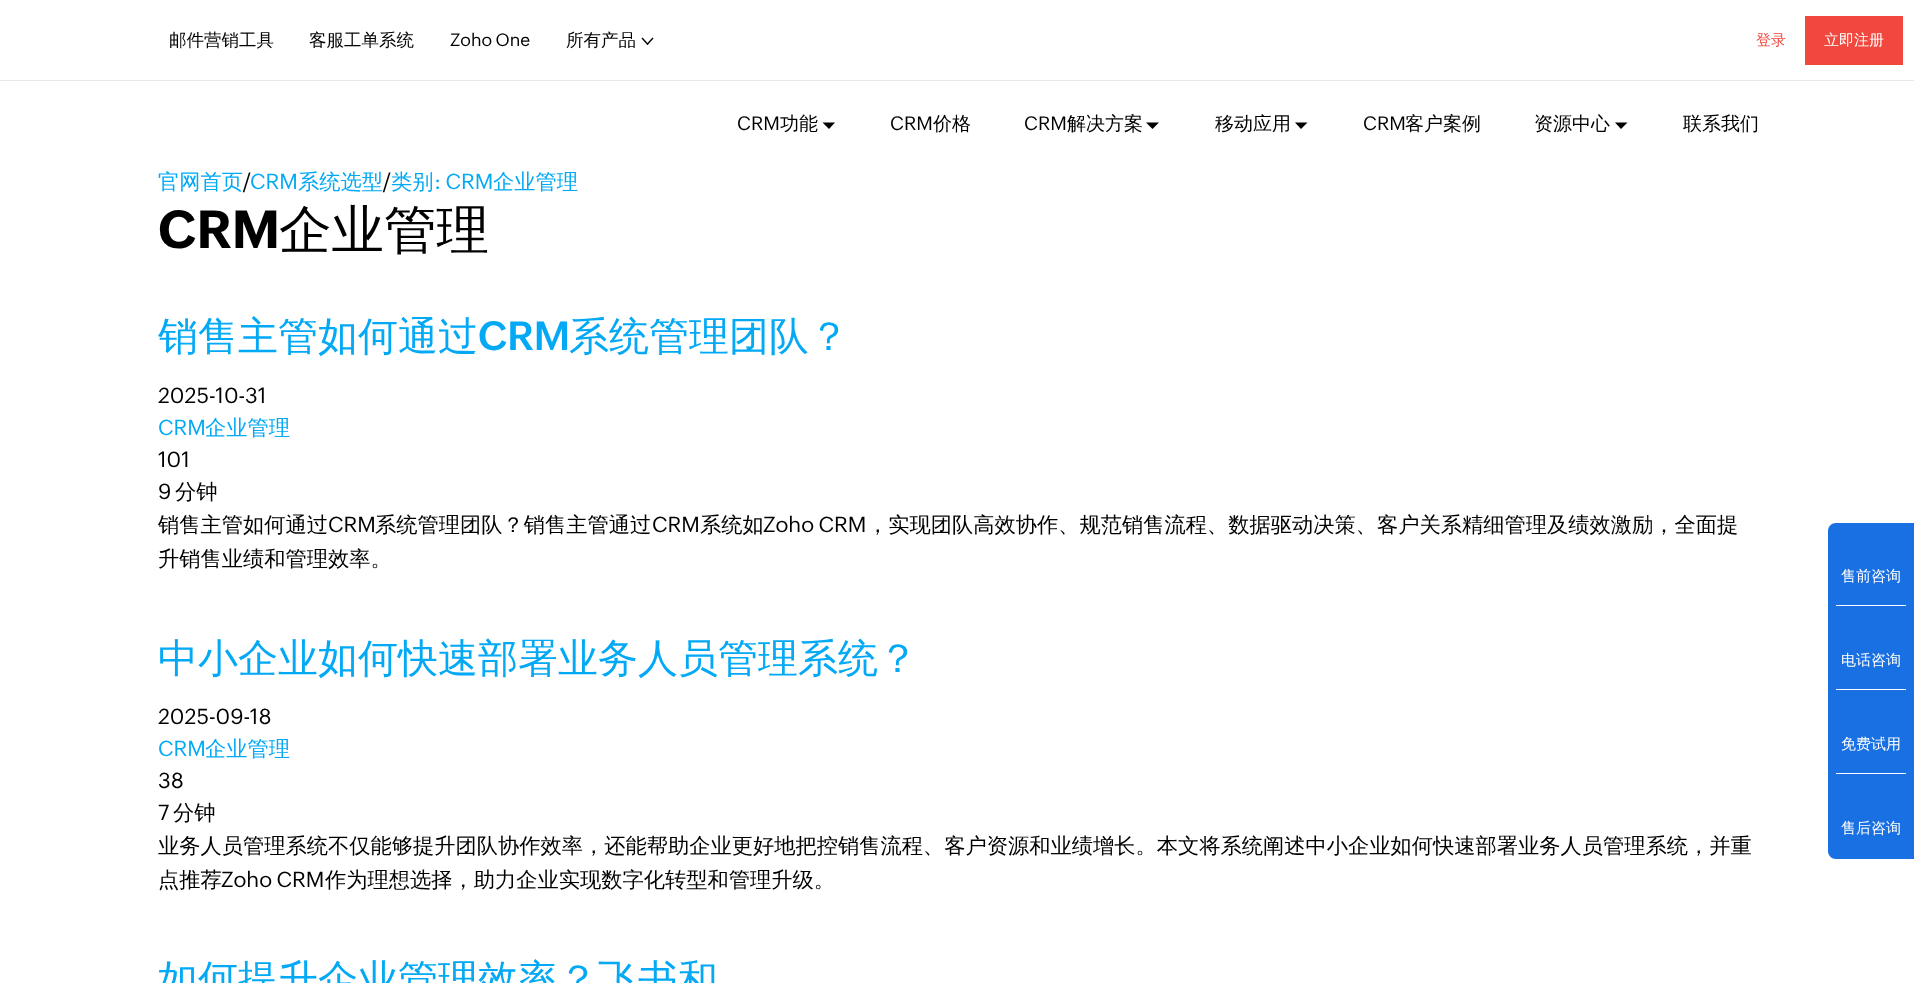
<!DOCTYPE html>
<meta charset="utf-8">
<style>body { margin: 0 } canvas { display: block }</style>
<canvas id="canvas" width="1914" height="983"></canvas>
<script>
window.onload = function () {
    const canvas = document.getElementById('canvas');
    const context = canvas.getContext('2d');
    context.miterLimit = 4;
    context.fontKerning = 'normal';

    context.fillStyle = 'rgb(255, 255, 255)';
    context.fillRect(0, 0, 1914, 983);
    context.fillStyle = 'rgb(232, 232, 232)';
    context.fillRect(0, 80, 1914, 1);
    context.fillStyle = 'rgb(0, 0, 0)';
    context.beginPath();
    context.moveTo(642.5, 37.5);
    context.lineTo(648.5, 44);
    context.lineTo(647.5, 45);
    context.lineTo(641.5, 38.5);
    context.closePath();
    context.fill();
    context.beginPath();
    context.moveTo(646.5, 44);
    context.lineTo(652.5, 37.5);
    context.lineTo(653.5, 38.5);
    context.lineTo(647.5, 45);
    context.closePath();
    context.fill();
    context.fillStyle = 'rgb(240, 72, 62)';
    context.fillRect(1805, 16, 98, 49);
    context.fillStyle = 'rgb(0, 0, 0)';
    context.beginPath();
    context.moveTo(822.5, 122.5);
    context.lineTo(835, 122.5);
    context.lineTo(829, 129);
    context.closePath();
    context.fill();
    context.beginPath();
    context.moveTo(1146, 122.5);
    context.lineTo(1159, 122.5);
    context.lineTo(1152.5, 129);
    context.closePath();
    context.fill();
    context.beginPath();
    context.moveTo(1295, 122.5);
    context.lineTo(1307.5, 122.5);
    context.lineTo(1301, 129);
    context.closePath();
    context.fill();
    context.beginPath();
    context.moveTo(1615, 122.5);
    context.lineTo(1627.5, 122.5);
    context.lineTo(1621, 129);
    context.closePath();
    context.fill();
    context.fillStyle = 'rgb(25, 112, 227)';
    context.beginPath();
    context.moveTo(1836, 523);
    context.lineTo(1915, 523);
    context.lineTo(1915, 859);
    context.lineTo(1836, 859);
    context.bezierCurveTo(1831.5, 859, 1828, 855.5, 1828, 851);
    context.lineTo(1828, 531);
    context.bezierCurveTo(1828, 526.5, 1831.5, 523, 1836, 523);
    context.closePath();
    context.fill();
    context.fillStyle = 'rgb(255, 255, 255)';
    context.fillRect(1836, 605, 70, 1);
    context.fillRect(1836, 689, 70, 1);
    context.fillRect(1836, 773, 70, 1);
    context.font = '500 17.5px WenQuanYi Zen Hei';
    context.fillStyle = 'rgb(0, 0, 0)';
    context.fillText('邮件营销工具', 169, 46);
    context.fillText('客服工单系统', 309, 46);
    context.font = '17.5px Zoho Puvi';
    context.fillText('Zoho One', 450, 46);
    context.font = '500 17.5px WenQuanYi Zen Hei';
    context.fillText('所有产品', 566, 46);
    context.font = '500 15px WenQuanYi Zen Hei';
    context.fillStyle = 'rgb(240, 72, 62)';
    context.fillText('登录', 1756, 45);
    context.fillStyle = 'rgb(255, 255, 255)';
    context.fillText('立即注册', 1824, 45);
    context.font = '19px Zoho Puvi';
    context.fillStyle = 'rgb(0, 0, 0)';
    context.fillText('CRM', 737, 130);
    context.font = '500 19px WenQuanYi Zen Hei';
    context.fillText('功能', 780, 130);
    context.font = '19px Zoho Puvi';
    context.fillText('CRM', 890, 130);
    context.font = '500 19px WenQuanYi Zen Hei';
    context.fillText('价格', 933, 130);
    context.font = '19px Zoho Puvi';
    context.fillText('CRM', 1024, 130);
    context.font = '500 19px WenQuanYi Zen Hei';
    context.fillText('解决方案', 1067, 130);
    context.fillText('移动应用', 1215, 130);
    context.font = '19px Zoho Puvi';
    context.fillText('CRM', 1363, 130);
    context.font = '500 19px WenQuanYi Zen Hei';
    context.fillText('客户案例', 1405, 130);
    context.fillText('资源中心', 1534, 130);
    context.fillText('联系我们', 1683, 130);
    context.font = '500 21.25px WenQuanYi Zen Hei';
    context.fillStyle = 'rgb(3, 169, 245)';
    context.fillText('官网首页', 158, 189);
    context.font = '21.25px Zoho Puvi';
    context.fillStyle = 'rgb(0, 0, 0)';
    context.fillText('/', 243, 189);
    context.fillStyle = 'rgb(3, 169, 245)';
    context.fillText('CRM', 250, 189);
    context.font = '500 21.25px WenQuanYi Zen Hei';
    context.fillText('系统选型', 298, 189);
    context.font = '21.25px Zoho Puvi';
    context.fillStyle = 'rgb(0, 0, 0)';
    context.fillText('/', 383, 189);
    context.font = '500 21.25px WenQuanYi Zen Hei';
    context.fillStyle = 'rgb(3, 169, 245)';
    context.fillText('类别', 391, 189);
    context.font = '21.25px Zoho Puvi';
    context.fillText(': CRM', 434, 189);
    context.font = '500 21.25px WenQuanYi Zen Hei';
    context.fillText('企业管理', 493, 189);
    context.font = 'bold 52.5px Zoho Puvi';
    context.fillStyle = 'rgb(0, 0, 0)';
    context.fillText('CRM', 158, 248);
    context.font = '500 52.5px WenQuanYi Zen Hei';
    context.fillText('企业管理', 279, 248);
    context.font = '500 40px WenQuanYi Zen Hei';
    context.fillStyle = 'rgb(3, 169, 245)';
    context.fillText('销售主管如何通过', 158, 350);
    context.font = '600 40px Zoho Puvi';
    context.fillText('CRM', 478, 350);
    context.font = '500 40px WenQuanYi Zen Hei';
    context.fillText('系统管理团队？', 569, 350);
    context.font = '21.25px Zoho Puvi';
    context.fillStyle = 'rgb(0, 0, 0)';
    context.fillText('2025-10-31', 158, 403);
    context.fillStyle = 'rgb(3, 169, 245)';
    context.fillText('CRM', 158, 435);
    context.font = '500 21.25px WenQuanYi Zen Hei';
    context.fillText('企业管理', 205, 435);
    context.font = '21.25px Zoho Puvi';
    context.fillStyle = 'rgb(0, 0, 0)';
    context.fillText('101', 158, 467);
    context.fillText('9', 158, 499);
    context.font = '500 21.25px WenQuanYi Zen Hei';
    context.fillText('分钟', 175, 499);
    context.fillText('销售主管如何通过', 158, 532);
    context.font = '21.25px Zoho Puvi';
    context.fillText('CRM', 328, 532);
    context.font = '500 21.25px WenQuanYi Zen Hei';
    context.fillText('系统管理团队？销售主管通过', 375, 532);
    context.font = '21.25px Zoho Puvi';
    context.fillText('CRM', 652, 532);
    context.font = '500 21.25px WenQuanYi Zen Hei';
    context.fillText('系统如', 700, 532);
    context.font = '21.25px Zoho Puvi';
    context.fillText('Zoho CRM', 763, 532);
    context.font = '500 21.25px WenQuanYi Zen Hei';
    context.fillText('，实现团队高效协作、规范销售流程、数据驱动决策、客户关系精细管理及绩效激励，全面提', 867, 532);
    context.fillText('升销售业绩和管理效率。', 158, 566);
    context.font = '500 40px WenQuanYi Zen Hei';
    context.fillStyle = 'rgb(3, 169, 245)';
    context.fillText('中小企业如何快速部署业务人员管理系统？', 158, 672);
    context.font = '21.25px Zoho Puvi';
    context.fillStyle = 'rgb(0, 0, 0)';
    context.fillText('2025-09-18', 158, 724);
    context.fillStyle = 'rgb(3, 169, 245)';
    context.fillText('CRM', 158, 756);
    context.font = '500 21.25px WenQuanYi Zen Hei';
    context.fillText('企业管理', 205, 756);
    context.font = '21.25px Zoho Puvi';
    context.fillStyle = 'rgb(0, 0, 0)';
    context.fillText('38', 158, 788);
    context.fillText('7', 158, 820);
    context.font = '500 21.25px WenQuanYi Zen Hei';
    context.fillText('分钟', 173, 820);
    context.fillText('业务人员管理系统不仅能够提升团队协作效率，还能帮助企业更好地把控销售流程、客户资源和业绩增长。本文将系统阐述中小企业如何快速部署业务人员管理系统，并重', 158, 853);
    context.fillText('点推荐', 158, 887);
    context.font = '21.25px Zoho Puvi';
    context.fillText('Zoho CRM', 221, 887);
    context.font = '500 21.25px WenQuanYi Zen Hei';
    context.fillText('作为理想选择，助力企业实现数字化转型和管理升级。', 325, 887);
    context.font = '500 40px WenQuanYi Zen Hei';
    context.fillStyle = 'rgb(3, 169, 245)';
    context.fillText('如何提升企业管理效率？飞书和', 158, 993);
    context.font = '500 15px WenQuanYi Zen Hei';
    context.fillStyle = 'rgb(255, 255, 255)';
    context.fillText('售前咨询', 1841, 581);
    context.fillText('电话咨询', 1841, 665);
    context.fillText('免费试用', 1841, 749);
    context.fillText('售后咨询', 1841, 833);
};
</script>
